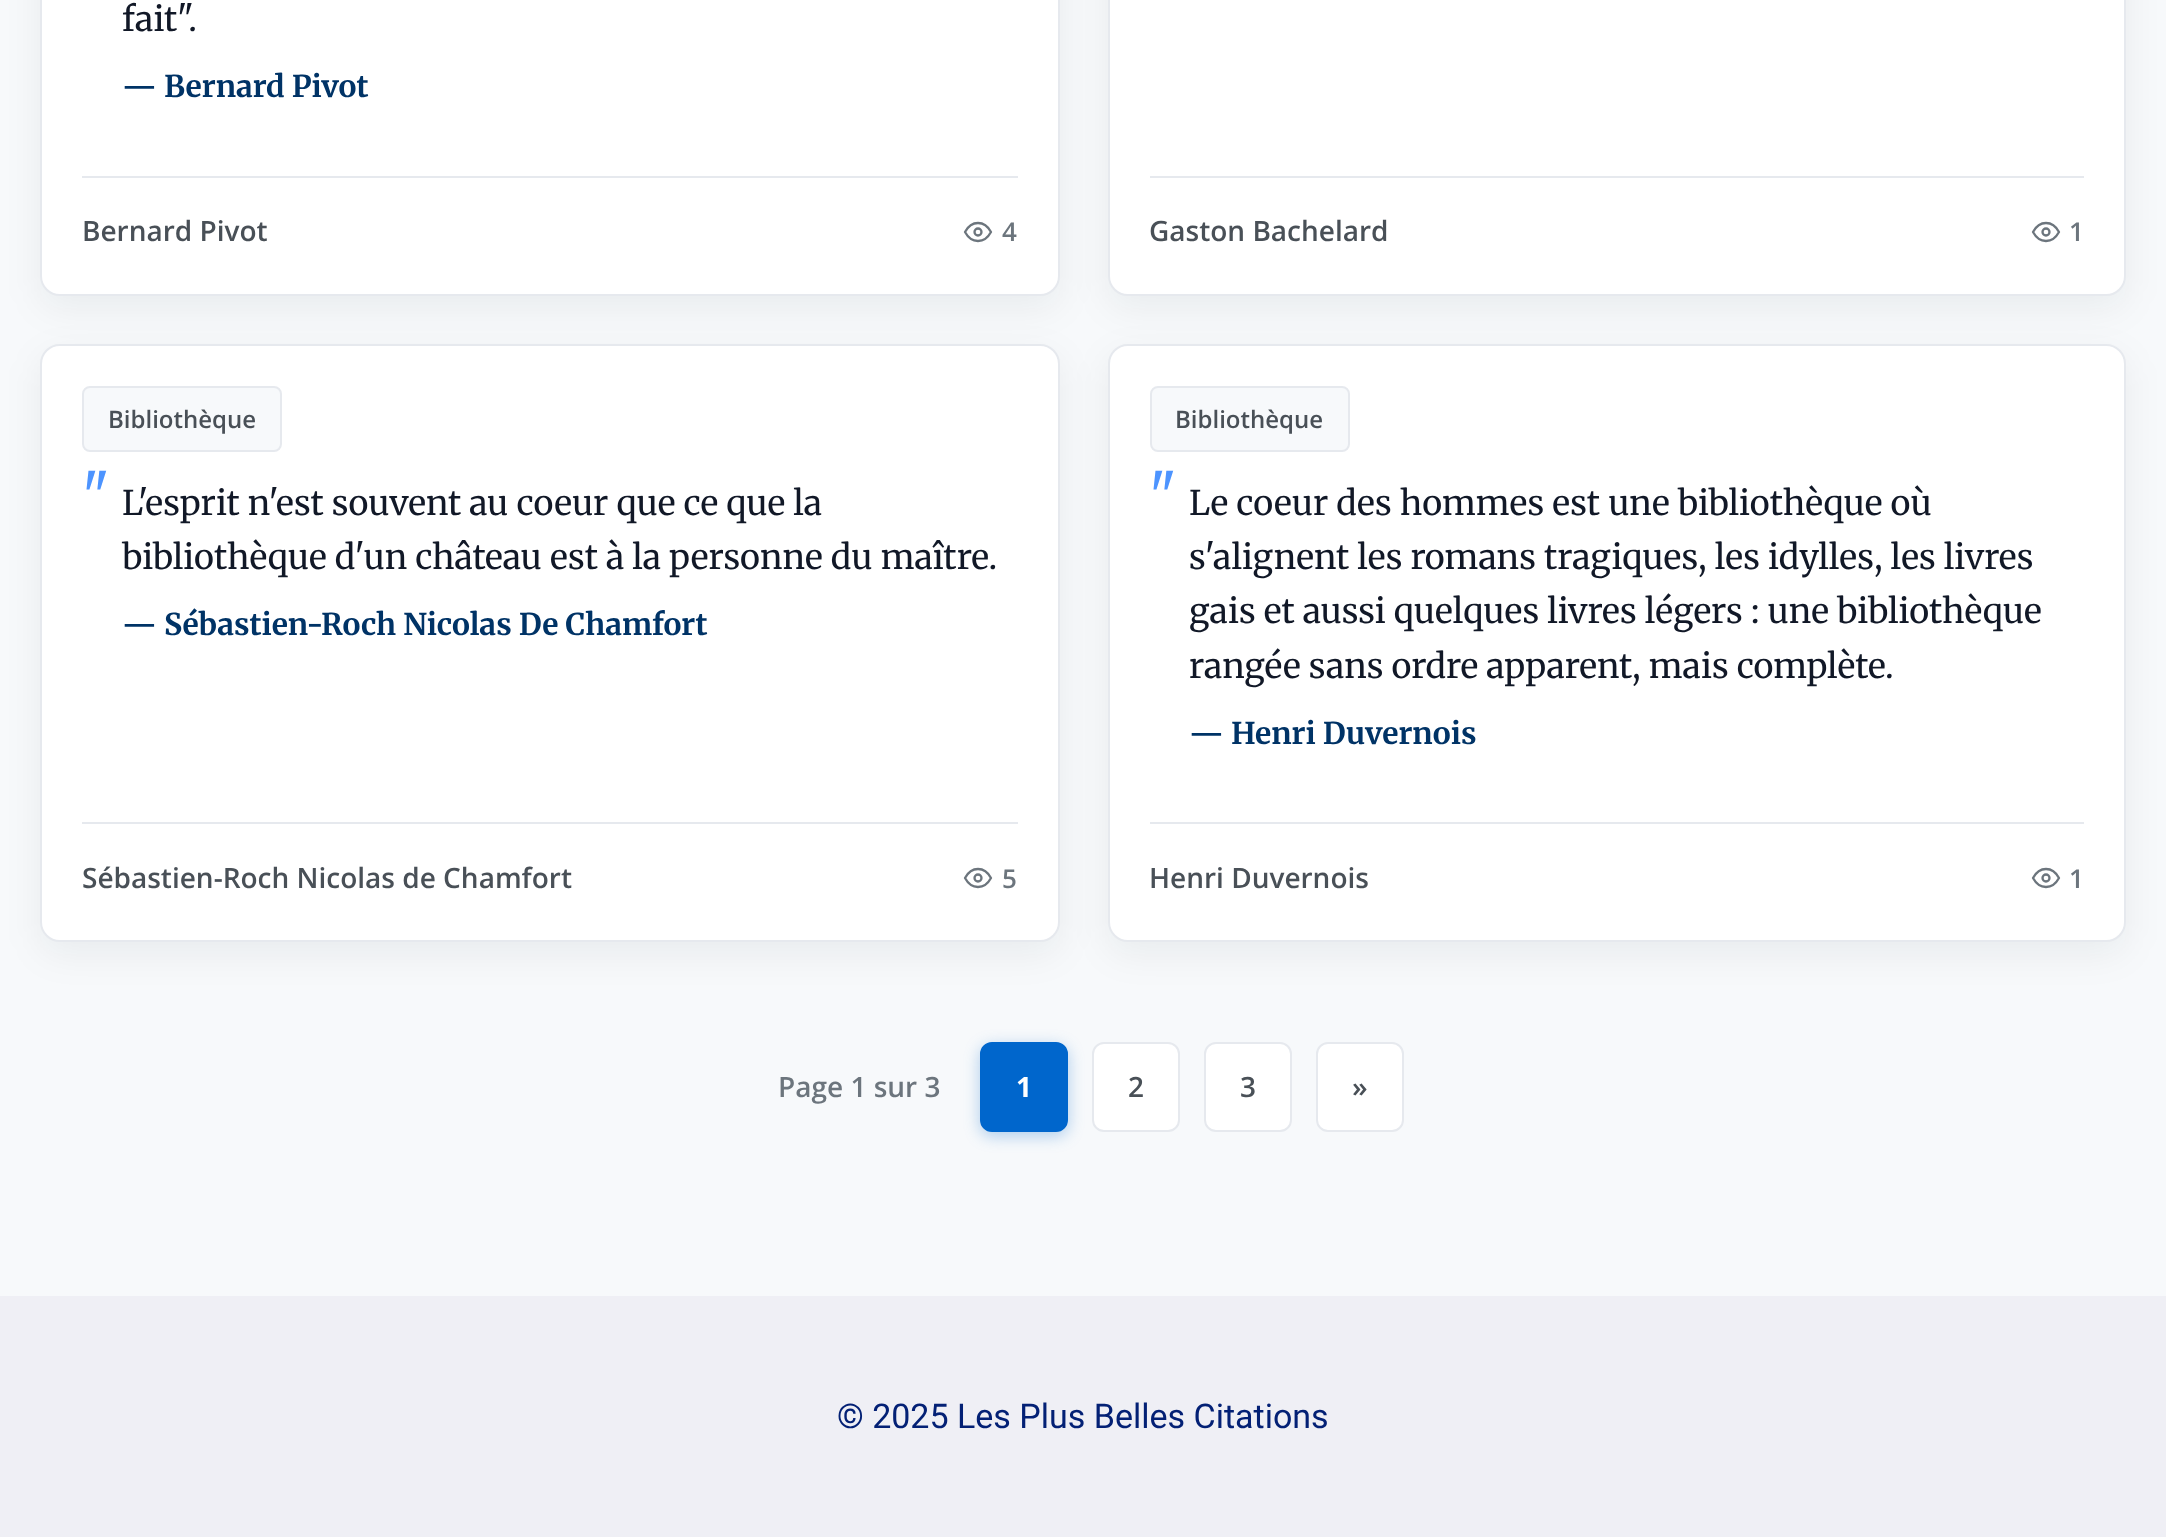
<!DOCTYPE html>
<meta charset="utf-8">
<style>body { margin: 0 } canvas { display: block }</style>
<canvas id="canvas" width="2166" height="1537"></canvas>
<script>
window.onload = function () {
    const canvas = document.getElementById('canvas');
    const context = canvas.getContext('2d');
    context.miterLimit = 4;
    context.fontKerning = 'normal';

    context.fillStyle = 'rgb(239, 239, 245)';
    context.fillRect(0, 0, 2166, 1537);
    context.fillStyle = 'rgb(247, 249, 251)';
    context.fillRect(0, 0, 2166, 1296);
    context.fillStyle = 'rgba(3, 10, 25, 0.06)';
    context.filter = 'blur(18px)';
    context.beginPath();
    context.roundRect(40, -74, 1020, 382, 20);
    context.fill();
    context.filter = 'none';
    context.fillStyle = 'rgb(255, 255, 255)';
    context.beginPath();
    context.roundRect(41, -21, 1018, 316, 19);
    context.fill();
    context.strokeStyle = 'rgb(230, 233, 238)';
    context.lineWidth = 2;
    context.stroke();
    context.fillStyle = 'rgb(230, 233, 238)';
    context.fillRect(82, 176, 936, 2);
    context.beginPath();
    context.moveTo(965, 232);
    context.bezierCurveTo(971.5, 220, 984.5, 220, 991, 232);
    context.bezierCurveTo(984.5, 244, 971.5, 244, 965, 232);
    context.closePath();
    context.strokeStyle = 'rgb(108, 117, 125)';
    context.lineWidth = 2.3;
    context.lineCap = 'round';
    context.lineJoin = 'round';
    context.stroke();
    context.beginPath();
    context.arc(978, 232, 3.5, 0, 2 * Math.PI);
    context.stroke();
    context.fillStyle = 'rgba(3, 10, 25, 0.06)';
    context.filter = 'blur(18px)';
    context.beginPath();
    context.roundRect(1108, -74, 1018, 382, 20);
    context.fill();
    context.filter = 'none';
    context.fillStyle = 'rgb(255, 255, 255)';
    context.beginPath();
    context.roundRect(1109, -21, 1016, 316, 19);
    context.fill();
    context.strokeStyle = 'rgb(230, 233, 238)';
    context.lineWidth = 2;
    context.lineJoin = 'miter';
    context.stroke();
    context.fillStyle = 'rgb(230, 233, 238)';
    context.fillRect(1150, 176, 934, 2);
    context.beginPath();
    context.moveTo(2033, 232);
    context.bezierCurveTo(2039.5, 220, 2052.5, 220, 2059, 232);
    context.bezierCurveTo(2052.5, 244, 2039.5, 244, 2033, 232);
    context.closePath();
    context.strokeStyle = 'rgb(108, 117, 125)';
    context.lineWidth = 2.3;
    context.lineJoin = 'round';
    context.stroke();
    context.beginPath();
    context.arc(2046, 232, 3.5, 0, 2 * Math.PI);
    context.stroke();
    context.fillStyle = 'rgba(3, 10, 25, 0.06)';
    context.filter = 'blur(18px)';
    context.beginPath();
    context.roundRect(40, 356, 1020, 598, 20);
    context.fill();
    context.filter = 'none';
    context.fillStyle = 'rgb(255, 255, 255)';
    context.beginPath();
    context.roundRect(41, 345, 1018, 596, 19);
    context.fill();
    context.strokeStyle = 'rgb(230, 233, 238)';
    context.lineWidth = 2;
    context.lineJoin = 'miter';
    context.stroke();
    context.fillStyle = 'rgb(247, 249, 251)';
    context.beginPath();
    context.roundRect(83, 387, 198, 64, 7);
    context.fill();
    context.stroke();
    context.fillStyle = 'rgb(230, 233, 238)';
    context.fillRect(82, 822, 936, 2);
    context.beginPath();
    context.moveTo(965, 878);
    context.bezierCurveTo(971.5, 866, 984.5, 866, 991, 878);
    context.bezierCurveTo(984.5, 890, 971.5, 890, 965, 878);
    context.closePath();
    context.strokeStyle = 'rgb(108, 117, 125)';
    context.lineWidth = 2.3;
    context.lineJoin = 'round';
    context.stroke();
    context.beginPath();
    context.arc(978, 878, 3.5, 0, 2 * Math.PI);
    context.stroke();
    context.fillStyle = 'rgba(3, 10, 25, 0.06)';
    context.filter = 'blur(18px)';
    context.beginPath();
    context.roundRect(1108, 356, 1018, 598, 20);
    context.fill();
    context.filter = 'none';
    context.fillStyle = 'rgb(255, 255, 255)';
    context.beginPath();
    context.roundRect(1109, 345, 1016, 596, 19);
    context.fill();
    context.strokeStyle = 'rgb(230, 233, 238)';
    context.lineWidth = 2;
    context.lineJoin = 'miter';
    context.stroke();
    context.fillStyle = 'rgb(247, 249, 251)';
    context.beginPath();
    context.roundRect(1151, 387, 198, 64, 7);
    context.fill();
    context.stroke();
    context.fillStyle = 'rgb(230, 233, 238)';
    context.fillRect(1150, 822, 934, 2);
    context.beginPath();
    context.moveTo(2033, 878);
    context.bezierCurveTo(2039.5, 866, 2052.5, 866, 2059, 878);
    context.bezierCurveTo(2052.5, 890, 2039.5, 890, 2033, 878);
    context.closePath();
    context.strokeStyle = 'rgb(108, 117, 125)';
    context.lineWidth = 2.3;
    context.lineJoin = 'round';
    context.stroke();
    context.beginPath();
    context.arc(2046, 878, 3.5, 0, 2 * Math.PI);
    context.stroke();
    context.fillStyle = 'rgba(0, 102, 204, 0.3)';
    context.filter = 'blur(8px)';
    context.beginPath();
    context.roundRect(980, 1046, 88, 90, 12);
    context.fill();
    context.filter = 'none';
    context.fillStyle = 'rgb(0, 102, 204)';
    context.beginPath();
    context.roundRect(981, 1043, 86, 88, 11);
    context.fill();
    context.strokeStyle = 'rgb(0, 102, 204)';
    context.lineWidth = 2;
    context.lineJoin = 'miter';
    context.stroke();
    context.fillStyle = 'rgb(255, 255, 255)';
    context.beginPath();
    context.roundRect(1093, 1043, 86, 88, 11);
    context.fill();
    context.strokeStyle = 'rgb(230, 233, 238)';
    context.stroke();
    context.beginPath();
    context.roundRect(1205, 1043, 86, 88, 11);
    context.fill();
    context.stroke();
    context.beginPath();
    context.roundRect(1317, 1043, 86, 88, 11);
    context.fill();
    context.stroke();
    context.font = '34px Merriweather';
    context.fillStyle = 'rgb(17, 24, 39)';
    context.fillText('fait".', 122, 31);
    context.font = 'bold 30px Merriweather';
    context.fillStyle = 'rgb(0, 51, 102)';
    context.fillText('— Bernard Pivot', 122, 97);
    context.font = '600 28px Open Sans';
    context.fillStyle = 'rgb(73, 80, 87)';
    context.fillText('Bernard Pivot', 82, 241);
    context.font = '600 26px Open Sans';
    context.fillStyle = 'rgb(108, 117, 125)';
    context.fillText('4', 1002, 241);
    context.font = '600 28px Open Sans';
    context.fillStyle = 'rgb(73, 80, 87)';
    context.fillText('Gaston Bachelard', 1149, 241);
    context.font = '600 26px Open Sans';
    context.fillStyle = 'rgb(108, 117, 125)';
    context.fillText('1', 2069, 241);
    context.font = '600 24px Open Sans';
    context.fillStyle = 'rgb(73, 80, 87)';
    context.fillText('Bibliothèque', 108, 428);
    context.font = '56px Merriweather';
    context.fillStyle = 'rgb(77, 148, 255)';
    context.fillText('"', 82, 517);
    context.font = '34px Merriweather';
    context.fillStyle = 'rgb(17, 24, 39)';
    context.fillText('L\'esprit n\'est souvent au coeur que ce que la', 122, 515);
    context.fillText('bibliothèque d\'un château est à la personne du maître.', 122, 569);
    context.font = 'bold 30px Merriweather';
    context.fillStyle = 'rgb(0, 51, 102)';
    context.fillText('— Sébastien-Roch Nicolas De Chamfort', 122, 635);
    context.font = '600 28px Open Sans';
    context.fillStyle = 'rgb(73, 80, 87)';
    context.fillText('Sébastien-Roch Nicolas de Chamfort', 82, 888);
    context.font = '600 26px Open Sans';
    context.fillStyle = 'rgb(108, 117, 125)';
    context.fillText('5', 1002, 888);
    context.font = '600 24px Open Sans';
    context.fillStyle = 'rgb(73, 80, 87)';
    context.fillText('Bibliothèque', 1175, 428);
    context.font = '56px Merriweather';
    context.fillStyle = 'rgb(77, 148, 255)';
    context.fillText('"', 1149, 517);
    context.font = '34px Merriweather';
    context.fillStyle = 'rgb(17, 24, 39)';
    context.fillText('Le coeur des hommes est une bibliothèque où', 1189, 515);
    context.fillText('s\'alignent les romans tragiques, les idylles, les livres', 1189, 569);
    context.fillText('gais et aussi quelques livres légers : une bibliothèque', 1189, 623);
    context.fillText('rangée sans ordre apparent, mais complète.', 1189, 678);
    context.font = 'bold 30px Merriweather';
    context.fillStyle = 'rgb(0, 51, 102)';
    context.fillText('— Henri Duvernois', 1189, 744);
    context.font = '600 28px Open Sans';
    context.fillStyle = 'rgb(73, 80, 87)';
    context.fillText('Henri Duvernois', 1149, 888);
    context.font = '600 26px Open Sans';
    context.fillStyle = 'rgb(108, 117, 125)';
    context.fillText('1', 2069, 888);
    context.font = '600 28px Open Sans';
    context.fillText('Page 1 sur 3', 778, 1097);
    context.font = 'bold 28px Open Sans';
    context.fillStyle = 'rgb(255, 255, 255)';
    context.fillText('1', 1016, 1097);
    context.font = '600 28px Open Sans';
    context.fillStyle = 'rgb(73, 80, 87)';
    context.fillText('2', 1128, 1097);
    context.fillText('3', 1240, 1097);
    context.fillText('»', 1352, 1097);
    context.font = '34px Roboto';
    context.fillStyle = 'rgb(3, 32, 117)';
    context.fillText('© 2025 Les Plus Belles Citations', 837, 1428);
};
</script>
